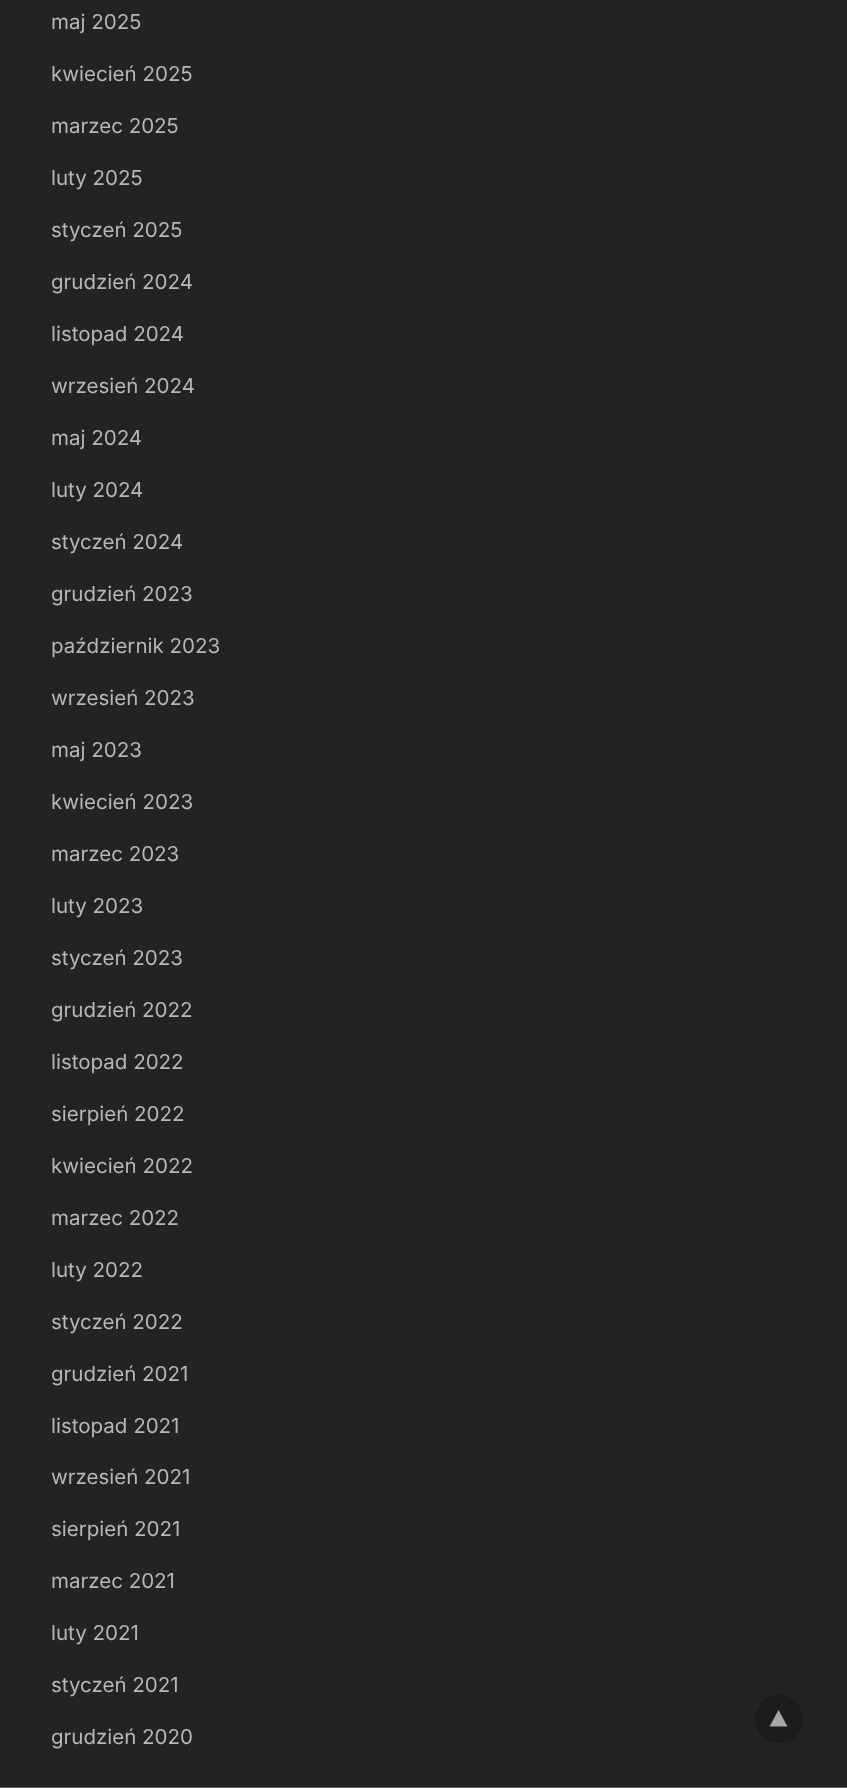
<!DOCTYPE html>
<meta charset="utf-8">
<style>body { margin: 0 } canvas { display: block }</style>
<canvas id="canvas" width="847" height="1788"></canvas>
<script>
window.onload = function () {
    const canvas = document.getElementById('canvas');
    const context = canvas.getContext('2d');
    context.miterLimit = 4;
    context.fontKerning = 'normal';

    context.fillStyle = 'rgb(35, 35, 35)';
    context.fillRect(0, 0, 847, 1788);
    context.fillStyle = 'rgb(102, 102, 102)';
    context.fillRect(0, 1787, 847, 1);
    context.fillStyle = 'rgb(28, 28, 28)';
    context.beginPath();
    context.arc(779, 1719, 24, 0, 2 * Math.PI);
    context.fill();
    context.fillStyle = 'rgb(167, 167, 167)';
    context.beginPath();
    context.moveTo(787.5, 1726.5);
    context.lineTo(769.5, 1726.5);
    context.lineTo(778.5, 1710);
    context.closePath();
    context.fill();
    context.font = '20.5px Inter';
    context.fillStyle = 'rgb(183, 183, 183)';
    context.fillText('maj 2025', 51, 29);
    context.fillText('kwiecień 2025', 51, 81);
    context.fillText('marzec 2025', 51, 133);
    context.fillText('luty 2025', 51, 185);
    context.fillText('styczeń 2025', 51, 237);
    context.fillText('grudzień 2024', 51, 289);
    context.fillText('listopad 2024', 51, 341);
    context.fillText('wrzesień 2024', 51, 393);
    context.fillText('maj 2024', 51, 445);
    context.fillText('luty 2024', 51, 497);
    context.fillText('styczeń 2024', 51, 549);
    context.fillText('grudzień 2023', 51, 601);
    context.fillText('październik 2023', 51, 653);
    context.fillText('wrzesień 2023', 51, 705);
    context.fillText('maj 2023', 51, 757);
    context.fillText('kwiecień 2023', 51, 809);
    context.fillText('marzec 2023', 51, 861);
    context.fillText('luty 2023', 51, 913);
    context.fillText('styczeń 2023', 51, 965);
    context.fillText('grudzień 2022', 51, 1017);
    context.fillText('listopad 2022', 51, 1069);
    context.fillText('sierpień 2022', 51, 1121);
    context.fillText('kwiecień 2022', 51, 1173);
    context.fillText('marzec 2022', 51, 1225);
    context.fillText('luty 2022', 51, 1277);
    context.fillText('styczeń 2022', 51, 1329);
    context.fillText('grudzień 2021', 51, 1381);
    context.fillText('listopad 2021', 51, 1433);
    context.fillText('wrzesień 2021', 51, 1484);
    context.fillText('sierpień 2021', 51, 1536);
    context.fillText('marzec 2021', 51, 1588);
    context.fillText('luty 2021', 51, 1640);
    context.fillText('styczeń 2021', 51, 1692);
    context.fillText('grudzień 2020', 51, 1744);
};
</script>
